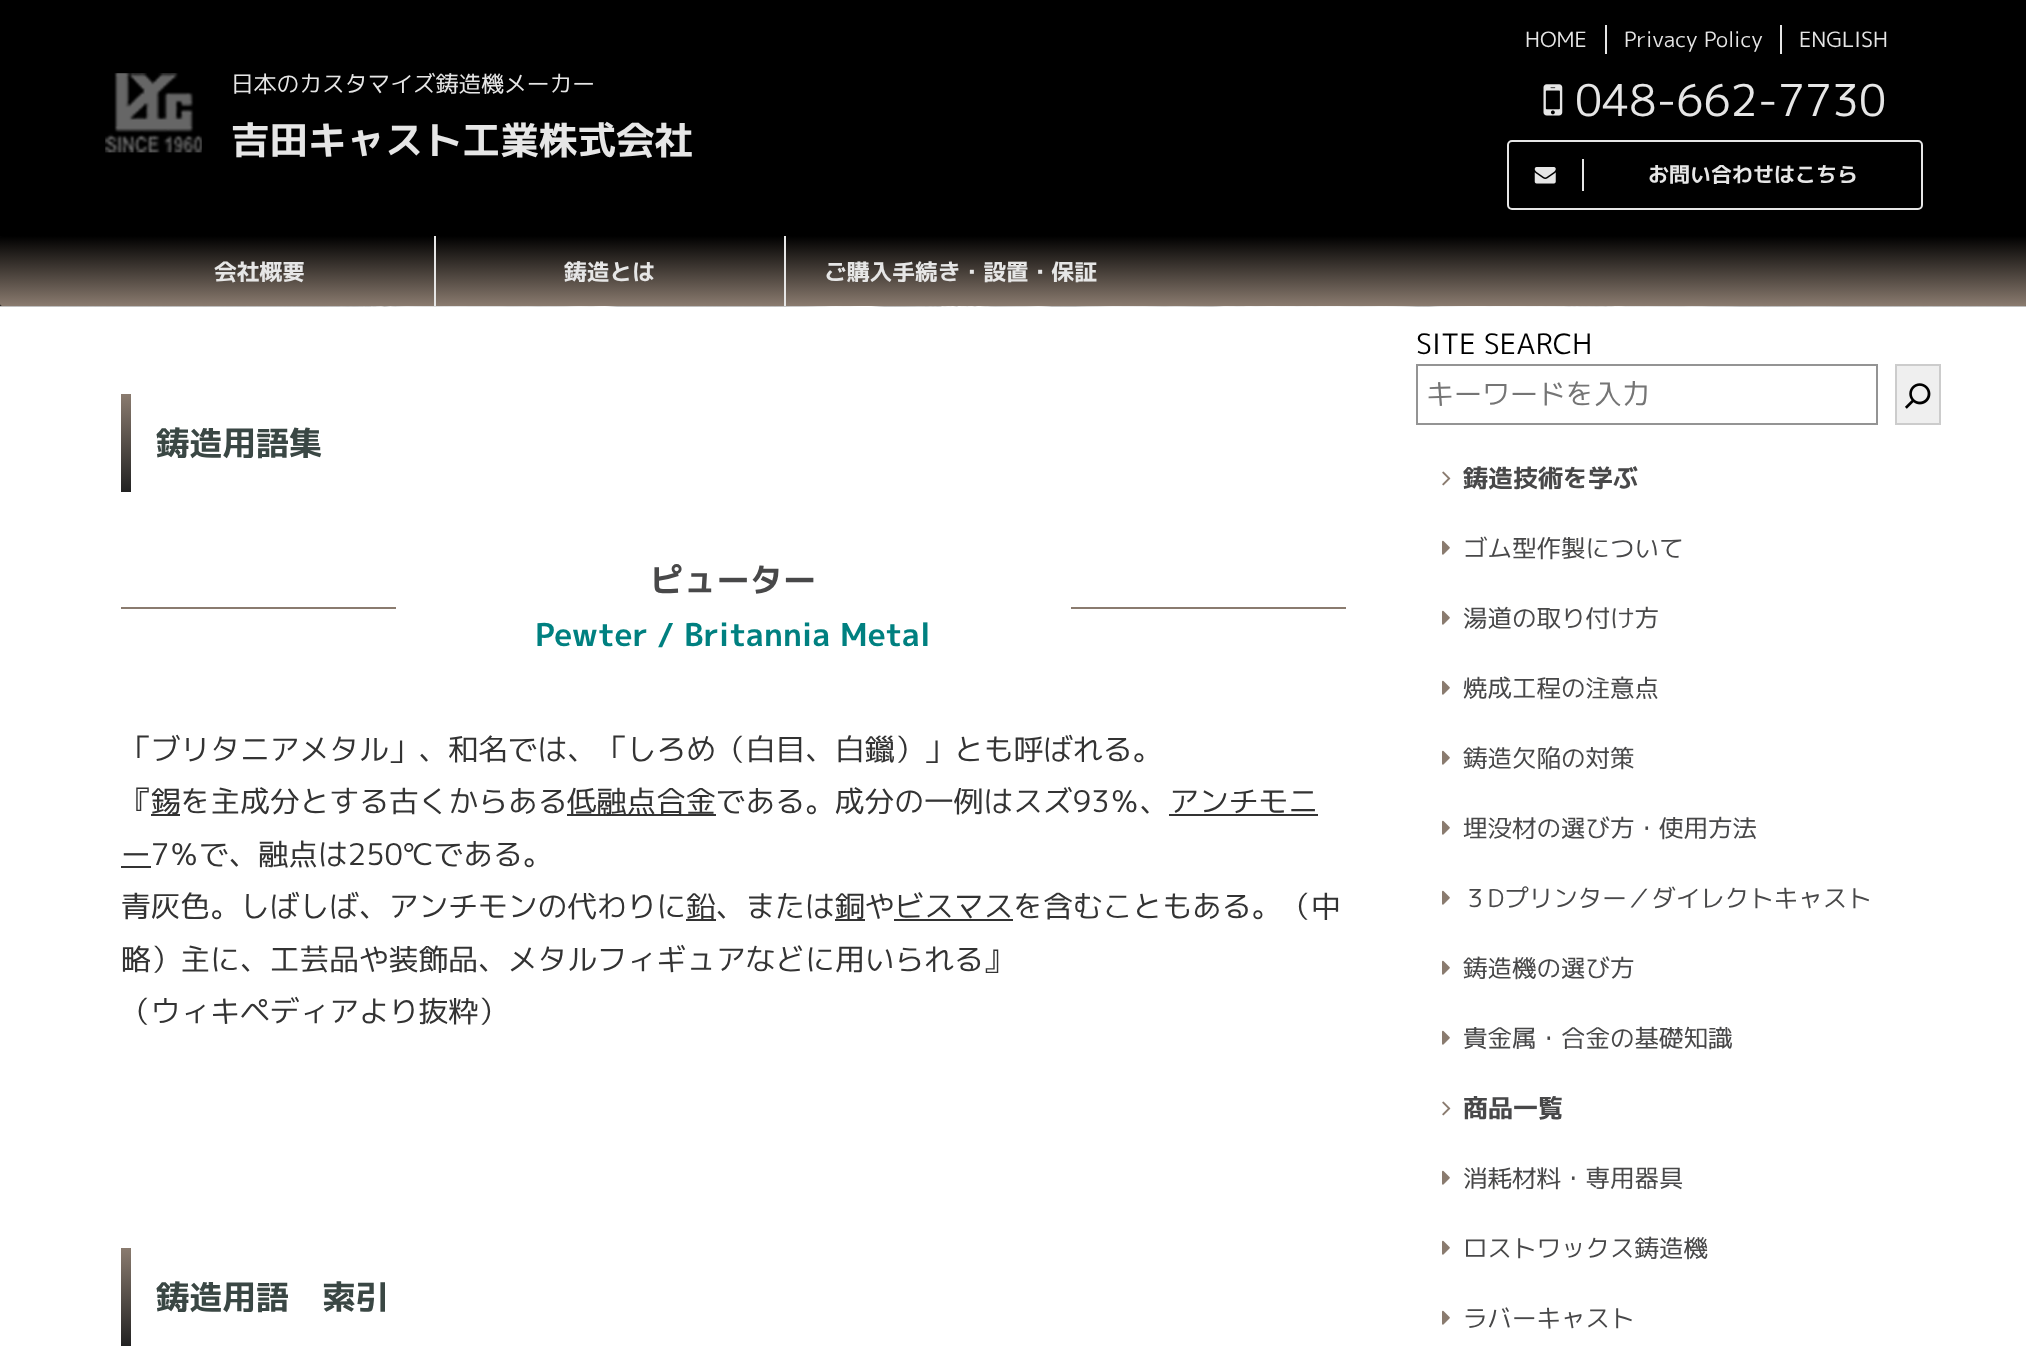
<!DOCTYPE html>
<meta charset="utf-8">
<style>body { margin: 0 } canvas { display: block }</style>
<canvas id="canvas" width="2026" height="1363"></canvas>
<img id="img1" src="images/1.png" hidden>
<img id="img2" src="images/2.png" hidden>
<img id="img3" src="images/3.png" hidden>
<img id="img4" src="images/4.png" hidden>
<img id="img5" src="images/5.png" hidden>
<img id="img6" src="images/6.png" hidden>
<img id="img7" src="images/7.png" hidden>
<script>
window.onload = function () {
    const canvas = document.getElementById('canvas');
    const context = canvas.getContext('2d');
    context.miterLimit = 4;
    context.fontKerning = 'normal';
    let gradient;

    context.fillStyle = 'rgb(255, 255, 255)';
    context.fillRect(0, 0, 2026, 1363);
    context.drawImage(document.getElementById('img1'), 0, 236, 2026, 71);
    context.fillStyle = 'rgb(0, 0, 0)';
    context.fillRect(0, 0, 2026, 236);
    context.drawImage(document.getElementById('img2'), 105, 73, 97, 80);
    context.fillStyle = 'rgb(230, 230, 230)';
    context.fillRect(1605, 25, 2, 29);
    context.fillRect(1780, 25, 2, 29);
    context.drawImage(document.getElementById('img3'), 1543, 84, 20, 32);
    context.beginPath();
    context.roundRect(1508, 141, 414, 68, 4);
    context.strokeStyle = 'rgb(230, 230, 230)';
    context.lineWidth = 2;
    context.stroke();
    context.drawImage(document.getElementById('img4'), 1534, 167, 22, 17);
    context.fillRect(1582, 159, 2, 32);
    gradient = context.createLinearGradient(1013, 236, 1013, 306);
    gradient.addColorStop(0, 'rgb(0, 0, 0)');
    gradient.addColorStop(1, 'rgb(138, 123, 111)');
    context.fillStyle = gradient;
    context.beginPath();
    context.roundRect(0, 236, 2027, 70, 2);
    context.fill();
    context.fillStyle = 'rgb(230, 230, 230)';
    context.fillRect(434, 236, 2, 70);
    context.fillRect(784, 236, 2, 70);
    gradient = context.createLinearGradient(126, 394, 126, 492);
    gradient.addColorStop(0, 'rgb(138, 123, 111)');
    gradient.addColorStop(1, 'rgb(34, 34, 34)');
    context.fillStyle = gradient;
    context.fillRect(121, 394, 10, 98);
    context.fillStyle = 'rgb(138, 123, 111)';
    context.fillRect(121, 607, 275, 2);
    context.fillRect(1071, 607, 275, 2);
    context.fillStyle = 'rgb(51, 51, 51)';
    context.fillRect(151, 814, 29, 2);
    context.fillRect(567, 814, 149, 2);
    context.fillRect(1169, 814, 149, 2);
    context.fillRect(121, 866, 30, 2);
    context.fillRect(686, 919, 30, 2);
    context.fillRect(835, 919, 30, 2);
    context.fillRect(894, 919, 119, 2);
    gradient = context.createLinearGradient(126, 1248, 126, 1346);
    gradient.addColorStop(0, 'rgb(138, 123, 111)');
    gradient.addColorStop(1, 'rgb(34, 34, 34)');
    context.fillStyle = gradient;
    context.fillRect(121, 1248, 10, 98);
    context.strokeStyle = 'rgb(148, 148, 148)';
    context.strokeRect(1417, 365, 460, 59);
    context.fillStyle = 'rgb(239, 239, 239)';
    context.beginPath();
    context.rect(1896, 365, 44, 59);
    context.fill();
    context.strokeStyle = 'rgb(204, 204, 204)';
    context.stroke();
    context.drawImage(document.getElementById('img5'), 1905, 383, 26, 26);
    context.drawImage(document.getElementById('img6'), 1442, 471, 9, 15);
    context.drawImage(document.getElementById('img7'), 1442, 540, 8, 15);
    context.drawImage(document.getElementById('img7'), 1442, 610, 8, 15);
    context.drawImage(document.getElementById('img7'), 1442, 680, 8, 15);
    context.drawImage(document.getElementById('img7'), 1442, 750, 8, 15);
    context.drawImage(document.getElementById('img7'), 1442, 820, 8, 15);
    context.drawImage(document.getElementById('img7'), 1442, 890, 8, 15);
    context.drawImage(document.getElementById('img7'), 1442, 960, 8, 15);
    context.drawImage(document.getElementById('img7'), 1442, 1030, 8, 15);
    context.drawImage(document.getElementById('img6'), 1442, 1101, 9, 15);
    context.drawImage(document.getElementById('img7'), 1442, 1170, 8, 15);
    context.drawImage(document.getElementById('img7'), 1442, 1240, 8, 15);
    context.drawImage(document.getElementById('img7'), 1442, 1310, 8, 15);
    context.font = '22.75px "M PLUS 1p"';
    context.fillStyle = 'rgb(230, 230, 230)';
    context.fillText('日本のカスタマイズ鋳造機メーカー', 231, 92);
    context.font = 'bold 38.5px "M PLUS 1p"';
    context.fillText('吉田キャスト工業株式会社', 231, 154);
    context.font = '21px "M PLUS 1p"';
    context.fillText('HOME', 1525, 47);
    context.fillText('Privacy Policy', 1624, 47);
    context.fillText('ENGLISH', 1799, 47);
    context.font = '43.75px "M PLUS 1p"';
    context.fillText('048-662-7730', 1575, 116);
    context.font = 'bold 21px "M PLUS 1p"';
    context.fillText('お問い合わせはこちら', 1648, 182);
    context.font = 'bold 22.75px "M PLUS 1p"';
    context.fillText('会社概要', 214, 280);
    context.fillText('鋳造とは', 564, 280);
    context.fillText('ご購入手続き・設置・保証', 824, 280);
    context.font = 'bold 33.25px "M PLUS 1p"';
    context.fillStyle = 'rgb(58, 71, 68)';
    context.fillText('鋳造用語集', 156, 455);
    context.fillStyle = 'rgb(72, 72, 73)';
    context.fillText('ピューター', 650, 592);
    context.font = 'bold 31.5px "M PLUS 1p"';
    context.fillStyle = 'rgb(0, 128, 128)';
    context.fillText('Pewter / Britannia Metal', 535, 646);
    context.font = '29.75px "M PLUS 1p"';
    context.fillStyle = 'rgb(51, 51, 51)';
    context.fillText('「ブリタニアメタル」、和名では、「しろめ（白目、白鑞）」とも呼ばれる。', 121, 760);
    context.fillText('『', 121, 812);
    context.fillText('錫を主成分とする古くからある', 151, 812);
    context.fillText('低融点合金である。成分の一例はスズ93％、アンチモニ', 567, 812);
    context.fillText('ー7％で、融点は250℃である。', 121, 865);
    context.fillText('青灰色。しばしば、アンチモンの代わりに', 121, 917);
    context.fillText('鉛、または', 686, 917);
    context.fillText('銅やビスマスを含むこともある。（中', 835, 917);
    context.fillText('略）主に、工芸品や装飾品、メタルフィギュアなどに用いられる』', 121, 970);
    context.fillText('（ウィキペディアより抜粋）', 121, 1022);
    context.font = 'bold 33.25px "M PLUS 1p"';
    context.fillStyle = 'rgb(58, 71, 68)';
    context.fillText('鋳造用語　索引', 156, 1309);
    context.font = '28px "M PLUS 1p"';
    context.fillStyle = 'rgb(0, 0, 0)';
    context.fillText('SITE SEARCH', 1416, 354);
    context.fillStyle = 'rgb(117, 117, 117)';
    context.fillText('キーワードを入力', 1426, 404);
    context.font = 'bold 25px "M PLUS 1p"';
    context.fillStyle = 'rgb(72, 72, 73)';
    context.fillText('鋳造技術を学ぶ', 1463, 487);
    context.font = '24.5px "M PLUS 1p"';
    context.fillText('ゴム型作製について', 1463, 557);
    context.fillText('湯道の取り付け方', 1463, 627);
    context.fillText('焼成工程の注意点', 1463, 697);
    context.fillText('鋳造欠陥の対策', 1463, 767);
    context.fillText('埋没材の選び方・使用方法', 1463, 837);
    context.fillText('３Dプリンター／ダイレクトキャスト', 1463, 907);
    context.fillText('鋳造機の選び方', 1463, 977);
    context.fillText('貴金属・合金の基礎知識', 1463, 1047);
    context.font = 'bold 25px "M PLUS 1p"';
    context.fillText('商品一覧', 1463, 1117);
    context.font = '24.5px "M PLUS 1p"';
    context.fillText('消耗材料・専用器具', 1463, 1187);
    context.fillText('ロストワックス鋳造機', 1463, 1257);
    context.fillText('ラバーキャスト', 1463, 1327);
};
</script>
